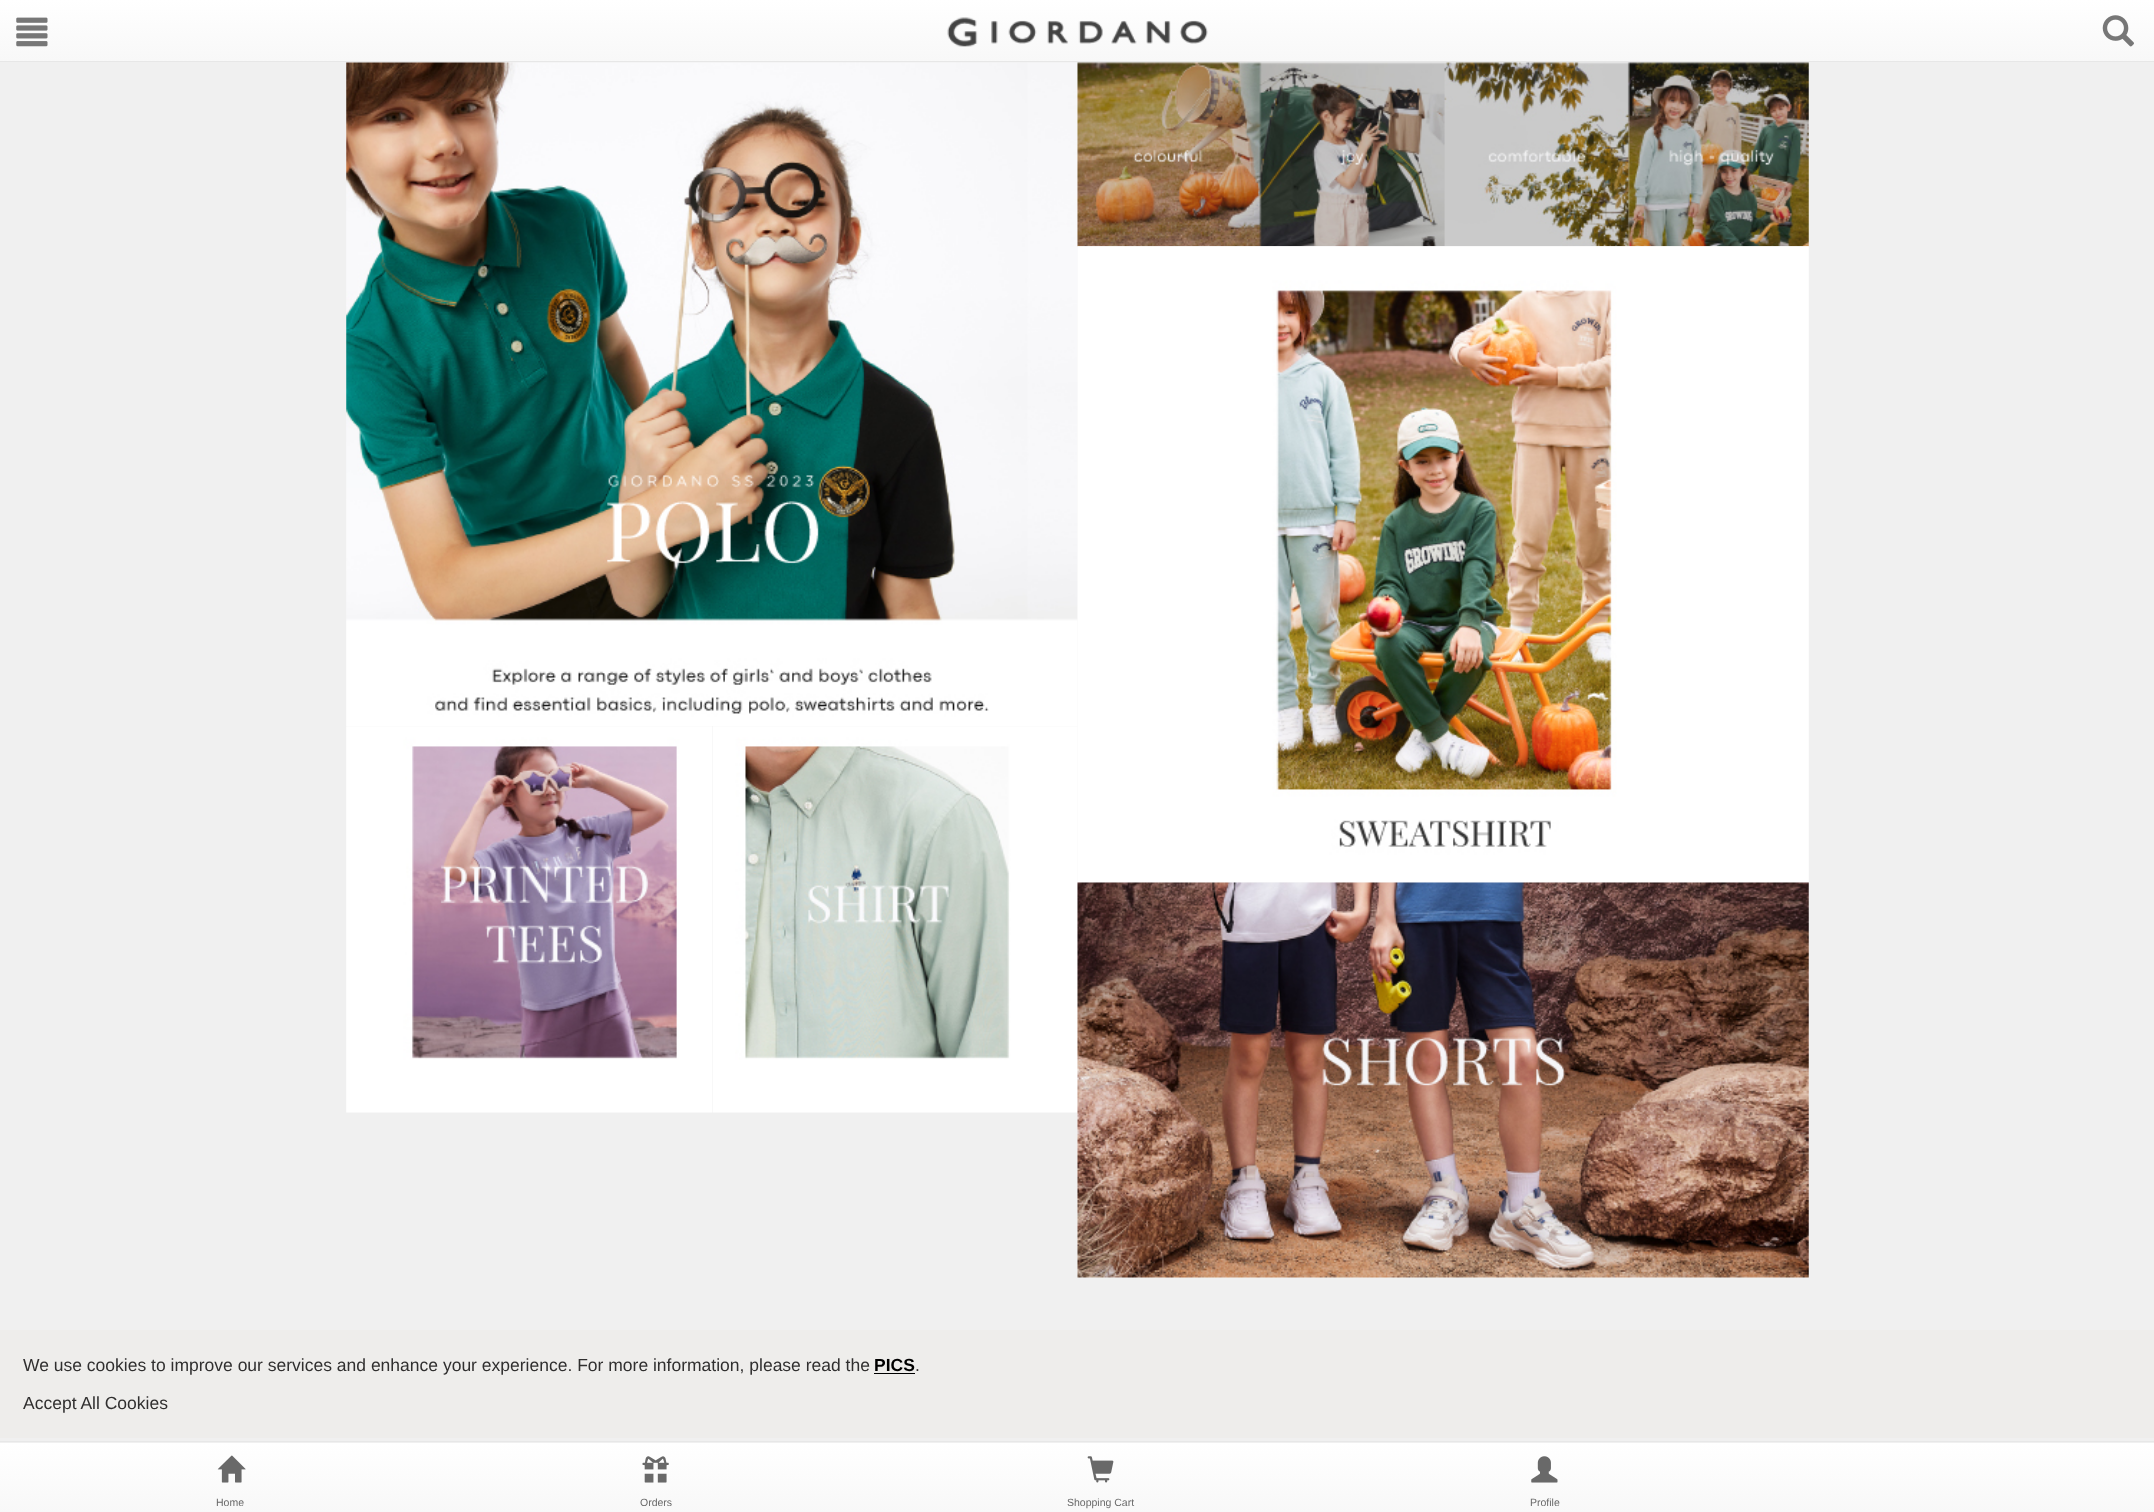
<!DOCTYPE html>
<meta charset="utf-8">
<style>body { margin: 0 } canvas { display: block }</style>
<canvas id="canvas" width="2154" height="1512"></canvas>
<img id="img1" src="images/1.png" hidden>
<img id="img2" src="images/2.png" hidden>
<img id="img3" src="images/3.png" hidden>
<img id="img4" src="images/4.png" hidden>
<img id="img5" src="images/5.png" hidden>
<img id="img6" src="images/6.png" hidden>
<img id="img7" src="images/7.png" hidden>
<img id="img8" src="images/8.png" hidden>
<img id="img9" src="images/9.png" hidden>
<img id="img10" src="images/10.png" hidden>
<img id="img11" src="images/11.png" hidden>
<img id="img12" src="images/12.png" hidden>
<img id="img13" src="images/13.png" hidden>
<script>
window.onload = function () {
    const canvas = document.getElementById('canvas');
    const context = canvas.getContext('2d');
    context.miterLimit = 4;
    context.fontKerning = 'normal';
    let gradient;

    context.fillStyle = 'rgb(240, 240, 240)';
    context.fillRect(0, 0, 2154, 1512);
    gradient = context.createLinearGradient(1078, 0, 1078, 61);
    gradient.addColorStop(0, 'rgb(255, 255, 255)');
    gradient.addColorStop(1, 'rgb(248, 248, 248)');
    context.fillStyle = gradient;
    context.fillRect(0, 0, 2154, 61);
    context.fillStyle = 'rgb(231, 231, 231)';
    context.fillRect(0, 61, 2154, 1);
    context.drawImage(document.getElementById('img1'), 16, 17, 32, 30);
    context.drawImage(document.getElementById('img2'), 947, 17, 261, 30);
    context.drawImage(document.getElementById('img3'), 2102, 15, 32, 32);
    context.drawImage(document.getElementById('img4'), 346, 62, 732, 664);
    context.drawImage(document.getElementById('img5'), 346, 726, 367, 387);
    context.drawImage(document.getElementById('img6'), 713, 726, 365, 387);
    context.drawImage(document.getElementById('img7'), 1077, 62, 732, 185);
    context.drawImage(document.getElementById('img8'), 1077, 246, 732, 637);
    context.drawImage(document.getElementById('img9'), 1077, 882, 732, 396);
    context.fillStyle = 'rgb(238, 237, 235)';
    context.fillRect(0, 1330, 2154, 108);
    context.fillStyle = 'rgb(0, 0, 0)';
    context.fillRect(874, 1373, 41, 1);
    gradient = context.createLinearGradient(1078, 1443, 1078, 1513);
    gradient.addColorStop(0, 'rgb(255, 255, 255)');
    gradient.addColorStop(1, 'rgb(248, 248, 248)');
    context.fillStyle = gradient;
    context.fillRect(0, 1443, 2154, 69);
    context.fillStyle = 'rgb(231, 231, 231)';
    context.fillRect(0, 1441, 2154, 1);
    context.drawImage(document.getElementById('img10'), 217, 1455, 29, 28);
    context.drawImage(document.getElementById('img11'), 642, 1456, 27, 27);
    context.drawImage(document.getElementById('img12'), 1087, 1456, 27, 27);
    context.drawImage(document.getElementById('img13'), 1531, 1456, 27, 27);
    context.font = '17.5px Liberation Sans';
    context.fillStyle = 'rgb(48, 47, 47)';
    context.fillText('We use cookies to improve our services and enhance your experience. For more information, please read the', 23, 1371);
    context.font = 'bold 17.5px Liberation Sans';
    context.fillStyle = 'rgb(0, 0, 0)';
    context.fillText('PICS', 874, 1371);
    context.font = '17.5px Liberation Sans';
    context.fillStyle = 'rgb(48, 47, 47)';
    context.fillText('.', 915, 1371);
    context.fillText('Accept All Cookies', 23, 1409);
    context.font = '10.5px Liberation Sans';
    context.fillStyle = 'rgb(105, 105, 105)';
    context.fillText('Home', 216, 1506);
    context.fillText('Orders', 640, 1506);
    context.fillText('Shopping Cart', 1067, 1506);
    context.fillText('Profile', 1530, 1506);
};
</script>
